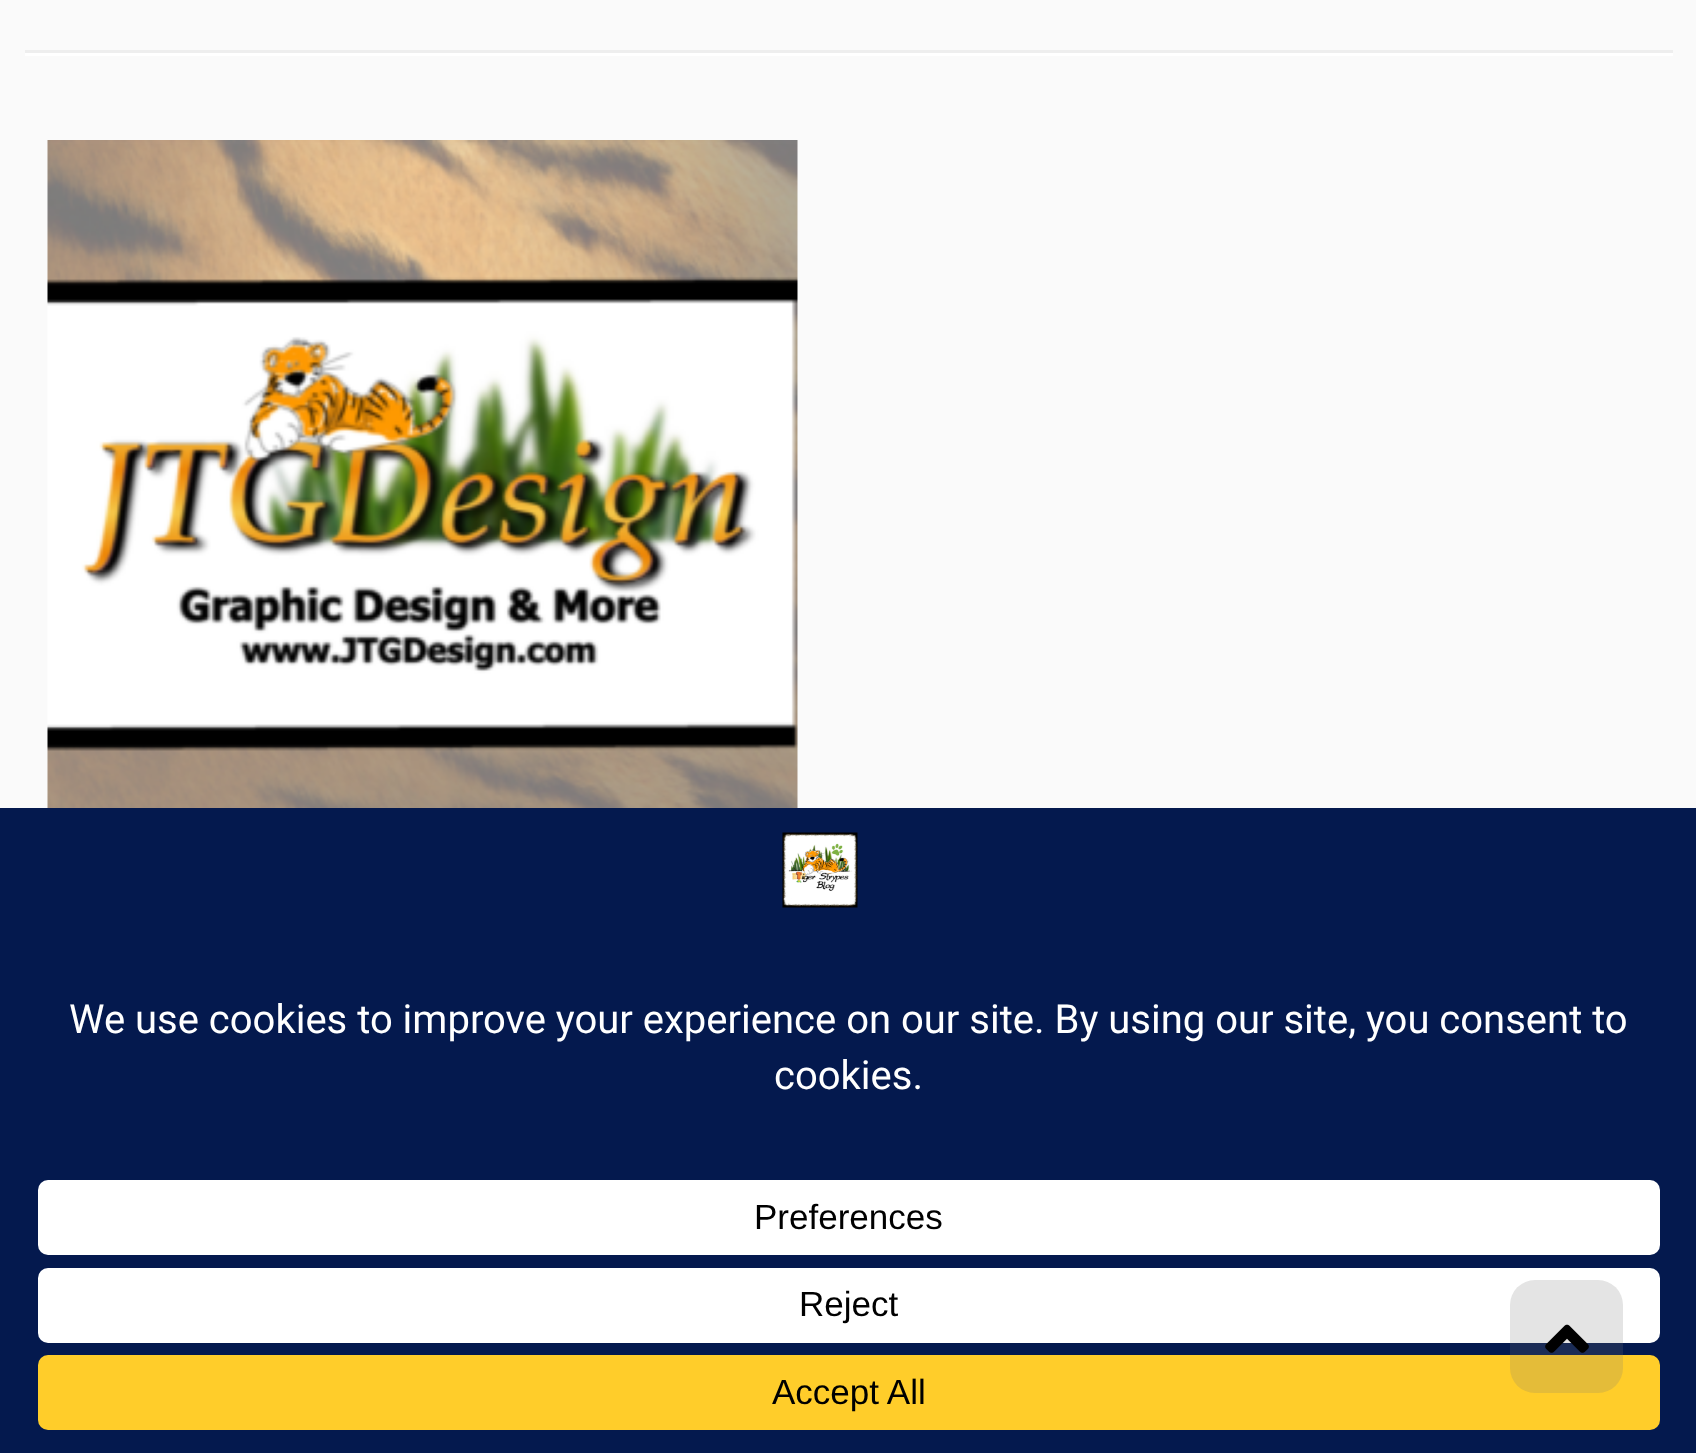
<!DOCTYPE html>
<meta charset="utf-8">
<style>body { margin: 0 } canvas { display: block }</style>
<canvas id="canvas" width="1696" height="1453"></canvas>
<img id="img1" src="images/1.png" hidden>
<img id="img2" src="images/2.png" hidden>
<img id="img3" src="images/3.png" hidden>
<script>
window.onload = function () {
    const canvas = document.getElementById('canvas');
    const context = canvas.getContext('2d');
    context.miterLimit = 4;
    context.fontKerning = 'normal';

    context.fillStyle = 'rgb(250, 250, 250)';
    context.fillRect(0, 0, 1696, 1453);
    context.fillStyle = 'rgb(238, 238, 238)';
    context.fillRect(25, 50, 1648, 3);
    context.fillStyle = 'rgb(255, 255, 255)';
    context.fillRect(25, 53, 1648, 3);
    context.drawImage(document.getElementById('img1'), 47, 140, 751, 668);
    context.fillStyle = 'rgb(4, 25, 78)';
    context.fillRect(0, 808, 1696, 645);
    context.drawImage(document.getElementById('img2'), 782, 832, 76, 76);
    context.fillStyle = 'rgb(255, 255, 255)';
    context.beginPath();
    context.roundRect(38, 1180, 1622, 75, 10);
    context.fill();
    context.beginPath();
    context.roundRect(38, 1268, 1622, 75, 10);
    context.fill();
    context.fillStyle = 'rgb(255, 205, 42)';
    context.beginPath();
    context.roundRect(38, 1355, 1622, 75, 10);
    context.fill();
    context.fillStyle = 'rgba(119, 119, 119, 0.2)';
    context.beginPath();
    context.roundRect(1510, 1280, 113, 113, 25);
    context.fill();
    context.drawImage(document.getElementById('img3'), 1545, 1324, 44, 29);
    context.font = '40px Roboto';
    context.fillStyle = 'rgb(255, 255, 255)';
    context.fillText('We use cookies to improve your experience on our site. By using our site, you consent to', 69, 1033);
    context.fillText('cookies.', 774, 1089);
    context.font = '35px Liberation Sans';
    context.fillStyle = 'rgb(0, 0, 0)';
    context.fillText('Preferences', 754, 1229);
    context.fillText('Reject', 799, 1316);
    context.fillText('Accept All', 772, 1404);
};
</script>
